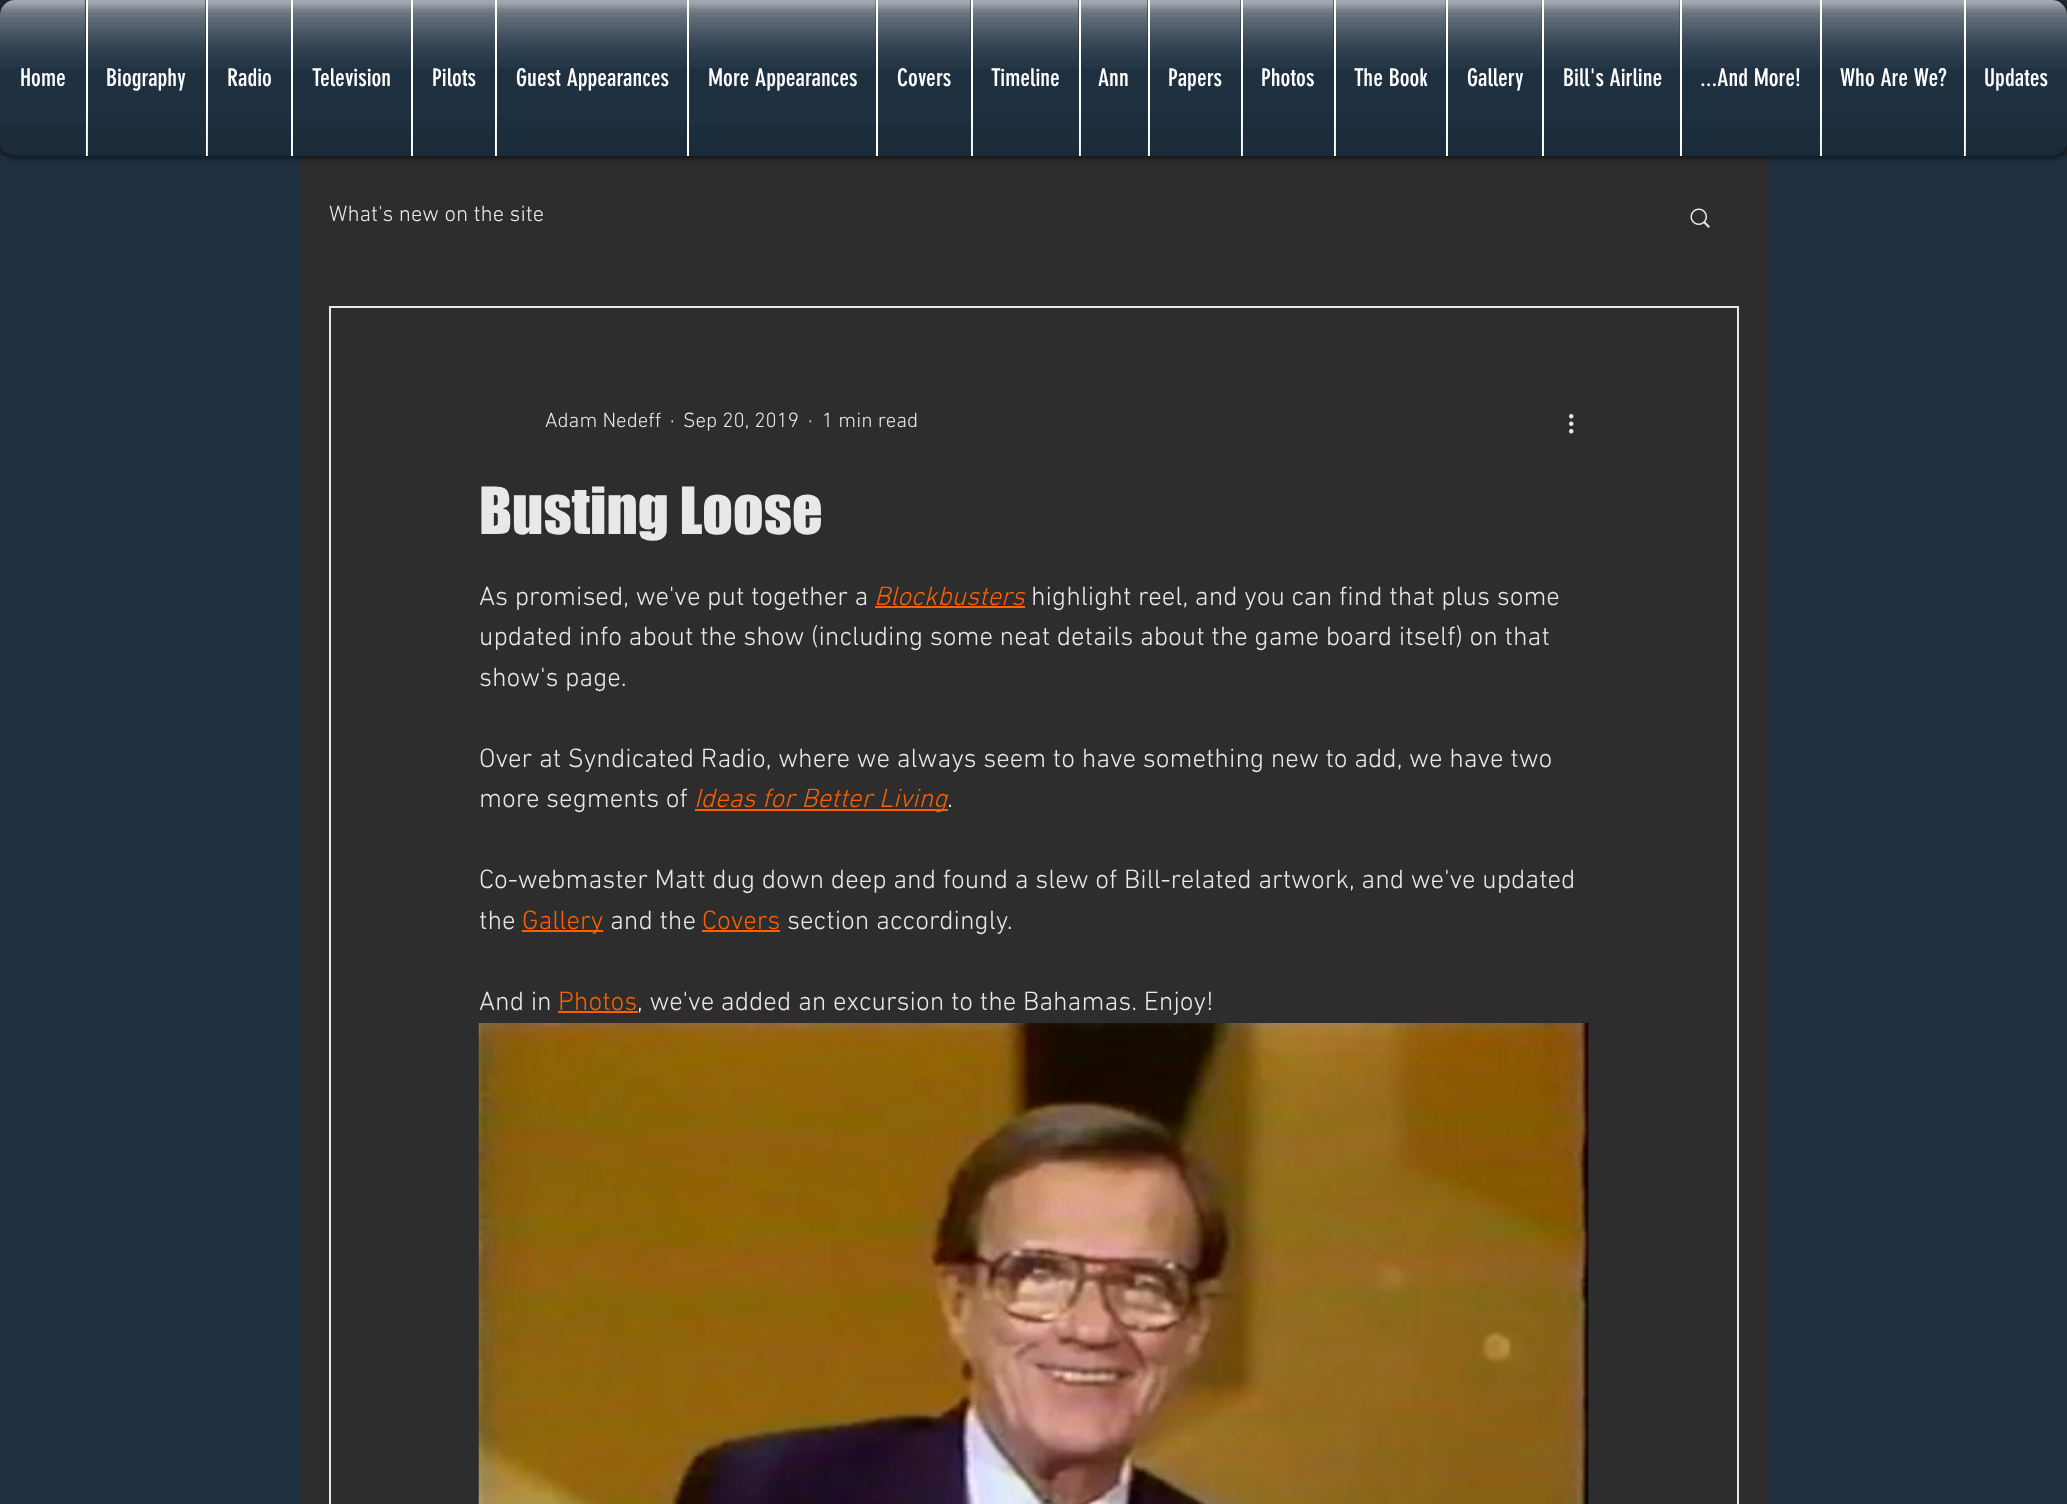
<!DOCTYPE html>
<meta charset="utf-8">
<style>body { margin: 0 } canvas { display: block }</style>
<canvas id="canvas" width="2067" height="1504"></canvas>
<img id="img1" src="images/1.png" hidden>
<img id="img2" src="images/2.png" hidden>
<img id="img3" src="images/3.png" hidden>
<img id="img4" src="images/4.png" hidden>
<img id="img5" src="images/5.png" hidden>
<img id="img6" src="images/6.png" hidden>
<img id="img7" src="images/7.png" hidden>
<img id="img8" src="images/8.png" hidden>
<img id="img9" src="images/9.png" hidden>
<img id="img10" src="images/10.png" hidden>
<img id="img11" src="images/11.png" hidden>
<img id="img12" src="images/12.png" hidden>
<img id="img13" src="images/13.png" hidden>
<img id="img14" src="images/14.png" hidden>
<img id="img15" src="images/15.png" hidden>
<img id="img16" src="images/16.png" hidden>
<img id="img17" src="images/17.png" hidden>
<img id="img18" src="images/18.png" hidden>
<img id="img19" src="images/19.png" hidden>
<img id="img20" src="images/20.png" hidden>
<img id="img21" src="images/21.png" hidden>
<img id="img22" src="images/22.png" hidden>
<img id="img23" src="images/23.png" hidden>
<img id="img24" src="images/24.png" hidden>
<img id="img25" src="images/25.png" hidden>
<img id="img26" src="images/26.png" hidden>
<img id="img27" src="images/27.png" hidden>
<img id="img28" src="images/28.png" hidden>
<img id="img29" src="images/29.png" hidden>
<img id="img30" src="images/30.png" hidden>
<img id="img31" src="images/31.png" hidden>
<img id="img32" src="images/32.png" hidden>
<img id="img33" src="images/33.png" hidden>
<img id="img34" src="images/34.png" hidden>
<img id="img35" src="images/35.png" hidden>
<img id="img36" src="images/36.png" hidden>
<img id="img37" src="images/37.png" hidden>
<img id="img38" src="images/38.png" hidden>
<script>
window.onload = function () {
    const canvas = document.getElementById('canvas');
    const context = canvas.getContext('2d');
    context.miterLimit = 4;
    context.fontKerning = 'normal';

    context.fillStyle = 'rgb(31, 49, 65)';
    context.fillRect(0, 0, 2067, 1504);
    context.fillStyle = 'rgb(33, 41, 47)';
    context.fillRect(0, 0, 2067, 156);
    context.fillStyle = 'rgb(45, 45, 45)';
    context.fillRect(299, 156, 1470, 1348);
    context.fillStyle = 'rgba(0, 0, 0, 0.6)';
    context.filter = 'blur(3px)';
    context.beginPath();
    context.roundRect(0, 2, 2067, 156, 15);
    context.fill();
    context.filter = 'none';
    context.drawImage(document.getElementById('img1'), 0, 0, 2067, 15);
    context.fillStyle = 'rgb(31, 49, 65)';
    context.beginPath();
    context.roundRect(0, 0, 86, 156, [15, 0, 0, 15]);
    context.fill();
    context.drawImage(document.getElementById('img2'), 0, 0, 86, 68);
    context.drawImage(document.getElementById('img3'), 0, 124, 85, 32);
    context.fillRect(88, 0, 118, 156);
    context.fillStyle = 'rgb(255, 255, 255)';
    context.fillRect(86, 0, 2, 156);
    context.drawImage(document.getElementById('img4'), 88, 0, 118, 68);
    context.drawImage(document.getElementById('img5'), 87, 106, 119, 50);
    context.fillStyle = 'rgb(31, 49, 65)';
    context.fillRect(208, 0, 83, 156);
    context.fillStyle = 'rgb(255, 255, 255)';
    context.fillRect(206, 0, 2, 156);
    context.drawImage(document.getElementById('img6'), 208, 0, 83, 68);
    context.drawImage(document.getElementById('img7'), 207, 106, 84, 50);
    context.fillStyle = 'rgb(31, 49, 65)';
    context.fillRect(293, 0, 118, 156);
    context.fillStyle = 'rgb(255, 255, 255)';
    context.fillRect(291, 0, 2, 156);
    context.drawImage(document.getElementById('img8'), 293, 0, 118, 68);
    context.drawImage(document.getElementById('img9'), 292, 115, 119, 41);
    context.fillStyle = 'rgb(31, 49, 65)';
    context.fillRect(413, 0, 82, 156);
    context.fillStyle = 'rgb(255, 255, 255)';
    context.fillRect(411, 0, 2, 156);
    context.drawImage(document.getElementById('img10'), 413, 0, 82, 68);
    context.drawImage(document.getElementById('img11'), 412, 115, 83, 41);
    context.fillStyle = 'rgb(31, 49, 65)';
    context.fillRect(497, 0, 190, 156);
    context.fillStyle = 'rgb(255, 255, 255)';
    context.fillRect(495, 0, 2, 156);
    context.drawImage(document.getElementById('img12'), 497, 0, 190, 68);
    context.drawImage(document.getElementById('img13'), 496, 115, 191, 41);
    context.fillStyle = 'rgb(31, 49, 65)';
    context.fillRect(689, 0, 187, 156);
    context.fillStyle = 'rgb(255, 255, 255)';
    context.fillRect(687, 0, 2, 156);
    context.drawImage(document.getElementById('img14'), 689, 0, 187, 68);
    context.drawImage(document.getElementById('img15'), 689, 124, 187, 32);
    context.fillStyle = 'rgb(31, 49, 65)';
    context.fillRect(878, 0, 93, 156);
    context.fillStyle = 'rgb(255, 255, 255)';
    context.fillRect(876, 0, 2, 156);
    context.drawImage(document.getElementById('img16'), 878, 0, 93, 68);
    context.drawImage(document.getElementById('img17'), 878, 124, 93, 32);
    context.fillStyle = 'rgb(31, 49, 65)';
    context.fillRect(973, 0, 106, 156);
    context.fillStyle = 'rgb(255, 255, 255)';
    context.fillRect(971, 0, 2, 156);
    context.drawImage(document.getElementById('img18'), 973, 0, 106, 68);
    context.drawImage(document.getElementById('img19'), 971, 109, 108, 47);
    context.fillStyle = 'rgb(31, 49, 65)';
    context.fillRect(1081, 0, 67, 156);
    context.fillStyle = 'rgb(255, 255, 255)';
    context.fillRect(1079, 0, 2, 156);
    context.drawImage(document.getElementById('img20'), 1081, 0, 67, 68);
    context.drawImage(document.getElementById('img21'), 1079, 109, 69, 47);
    context.fillStyle = 'rgb(31, 49, 65)';
    context.fillRect(1150, 0, 91, 156);
    context.fillStyle = 'rgb(255, 255, 255)';
    context.fillRect(1148, 0, 2, 156);
    context.drawImage(document.getElementById('img22'), 1150, 0, 91, 68);
    context.drawImage(document.getElementById('img23'), 1148, 109, 93, 47);
    context.fillStyle = 'rgb(31, 49, 65)';
    context.fillRect(1243, 0, 91, 156);
    context.fillStyle = 'rgb(255, 255, 255)';
    context.fillRect(1241, 0, 2, 156);
    context.drawImage(document.getElementById('img22'), 1243, 0, 91, 68);
    context.drawImage(document.getElementById('img23'), 1241, 109, 93, 47);
    context.fillStyle = 'rgb(31, 49, 65)';
    context.fillRect(1336, 0, 110, 156);
    context.fillStyle = 'rgb(255, 255, 255)';
    context.fillRect(1334, 0, 2, 156);
    context.drawImage(document.getElementById('img24'), 1336, 0, 110, 68);
    context.drawImage(document.getElementById('img25'), 1334, 109, 112, 47);
    context.fillStyle = 'rgb(31, 49, 65)';
    context.fillRect(1448, 0, 94, 156);
    context.fillStyle = 'rgb(255, 255, 255)';
    context.fillRect(1446, 0, 2, 156);
    context.drawImage(document.getElementById('img26'), 1448, 0, 94, 68);
    context.drawImage(document.getElementById('img27'), 1447, 115, 95, 41);
    context.fillStyle = 'rgb(31, 49, 65)';
    context.fillRect(1544, 0, 136, 156);
    context.fillStyle = 'rgb(255, 255, 255)';
    context.fillRect(1542, 0, 2, 156);
    context.drawImage(document.getElementById('img28'), 1544, 0, 136, 68);
    context.drawImage(document.getElementById('img29'), 1543, 115, 137, 41);
    context.fillStyle = 'rgb(31, 49, 65)';
    context.fillRect(1682, 0, 138, 156);
    context.fillStyle = 'rgb(255, 255, 255)';
    context.fillRect(1680, 0, 2, 156);
    context.drawImage(document.getElementById('img30'), 1682, 0, 138, 68);
    context.drawImage(document.getElementById('img31'), 1681, 115, 139, 41);
    context.fillStyle = 'rgb(31, 49, 65)';
    context.fillRect(1822, 0, 142, 156);
    context.fillStyle = 'rgb(255, 255, 255)';
    context.fillRect(1820, 0, 2, 156);
    context.drawImage(document.getElementById('img32'), 1822, 0, 142, 68);
    context.drawImage(document.getElementById('img33'), 1820, 109, 144, 47);
    context.fillStyle = 'rgb(31, 49, 65)';
    context.beginPath();
    context.roundRect(1964, 0, 103, 156, [0, 15, 15, 0]);
    context.fill();
    context.fillStyle = 'rgb(255, 255, 255)';
    context.fillRect(1964, 0, 2, 156);
    context.drawImage(document.getElementById('img34'), 1966, 0, 101, 68);
    context.drawImage(document.getElementById('img35'), 1965, 106, 102, 50);
    context.drawImage(document.getElementById('img36'), 1690, 208, 20, 20);
    context.strokeStyle = 'rgb(232, 232, 232)';
    context.lineWidth = 2;
    context.strokeRect(330, 307, 1408, 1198);
    context.drawImage(document.getElementById('img37'), 1569, 414, 5, 20);
    context.fillStyle = 'rgb(252, 96, 0)';
    context.fillRect(875, 606, 150, 2);
    context.fillRect(695, 809, 253, 2);
    context.fillRect(522, 930, 81, 2);
    context.fillRect(702, 930, 78, 2);
    context.fillRect(558, 1011, 80, 2);
    context.drawImage(document.getElementById('img38'), 478, 1023, 1111, 481);
    context.font = '24px "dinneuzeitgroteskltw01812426"';
    context.fillStyle = 'rgb(255, 255, 255)';
    context.fillText('Home', 20, 86);
    context.fillText('Biography', 106, 86);
    context.fillText('Radio', 227, 86);
    context.fillText('Television', 312, 86);
    context.fillText('Pilots', 432, 86);
    context.fillText('Guest Appearances', 516, 86);
    context.fillText('More Appearances', 708, 86);
    context.fillText('Covers', 897, 86);
    context.fillText('Timeline', 991, 86);
    context.fillText('Ann', 1098, 86);
    context.fillText('Papers', 1168, 86);
    context.fillText('Photos', 1261, 86);
    context.fillText('The Book', 1354, 86);
    context.fillText('Gallery', 1467, 86);
    context.fillText('Bill\'s Airline', 1563, 86);
    context.fillText('...And More!', 1700, 86);
    context.fillText('Who Are We?', 1840, 86);
    context.fillText('Updates', 1984, 86);
    context.font = '300 22.5px "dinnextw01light"';
    context.fillStyle = 'rgb(232, 232, 232)';
    context.fillText('What\'s new on the site', 329, 221);
    context.font = '300 21px "dinnextw01light"';
    context.fillText('Adam Nedeff', 545, 427);
    context.fillText('·', 670, 427);
    context.fillText('Sep 20, 2019', 683, 427);
    context.fillText('·', 808, 427);
    context.fillText('1 min read', 822, 427);
    context.font = '60px "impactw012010"';
    context.fillText('Busting Loose', 479, 534);
    context.font = '300 27px "dinnextw01light"';
    context.fillText('As promised, we\'ve put together a', 479, 605);
    context.font = 'italic 300 27px "dinnextw01light"';
    context.fillStyle = 'rgb(252, 96, 0)';
    context.fillText('Blockbusters', 874, 605);
    context.font = '300 27px "dinnextw01light"';
    context.fillStyle = 'rgb(232, 232, 232)';
    context.fillText('highlight reel, and you can find that plus some', 1031, 605);
    context.fillText('updated info about the show (including some neat details about the game board itself) on that', 479, 645);
    context.fillText('show\'s page.', 479, 686);
    context.fillText('Over at Syndicated Radio, where we always seem to have something new to add, we have two', 479, 767);
    context.fillText('more segments of', 479, 807);
    context.font = 'italic 300 27px "dinnextw01light"';
    context.fillStyle = 'rgb(252, 96, 0)';
    context.fillText('Ideas for Better Living', 694, 807);
    context.font = '300 27px "dinnextw01light"';
    context.fillStyle = 'rgb(232, 232, 232)';
    context.fillText('.', 947, 807);
    context.fillText('Co-webmaster Matt dug down deep and found a slew of Bill-related artwork, and we\'ve updated', 479, 888);
    context.fillText('the', 479, 929);
    context.fillStyle = 'rgb(252, 96, 0)';
    context.fillText('Gallery', 522, 929);
    context.fillStyle = 'rgb(232, 232, 232)';
    context.fillText('and the', 610, 929);
    context.fillStyle = 'rgb(252, 96, 0)';
    context.fillText('Covers', 702, 929);
    context.fillStyle = 'rgb(232, 232, 232)';
    context.fillText('section accordingly.', 787, 929);
    context.fillText('And in', 479, 1010);
    context.fillStyle = 'rgb(252, 96, 0)';
    context.fillText('Photos', 558, 1010);
    context.fillStyle = 'rgb(232, 232, 232)';
    context.fillText(', we\'ve added an excursion to the Bahamas. Enjoy!', 637, 1010);
};
</script>
